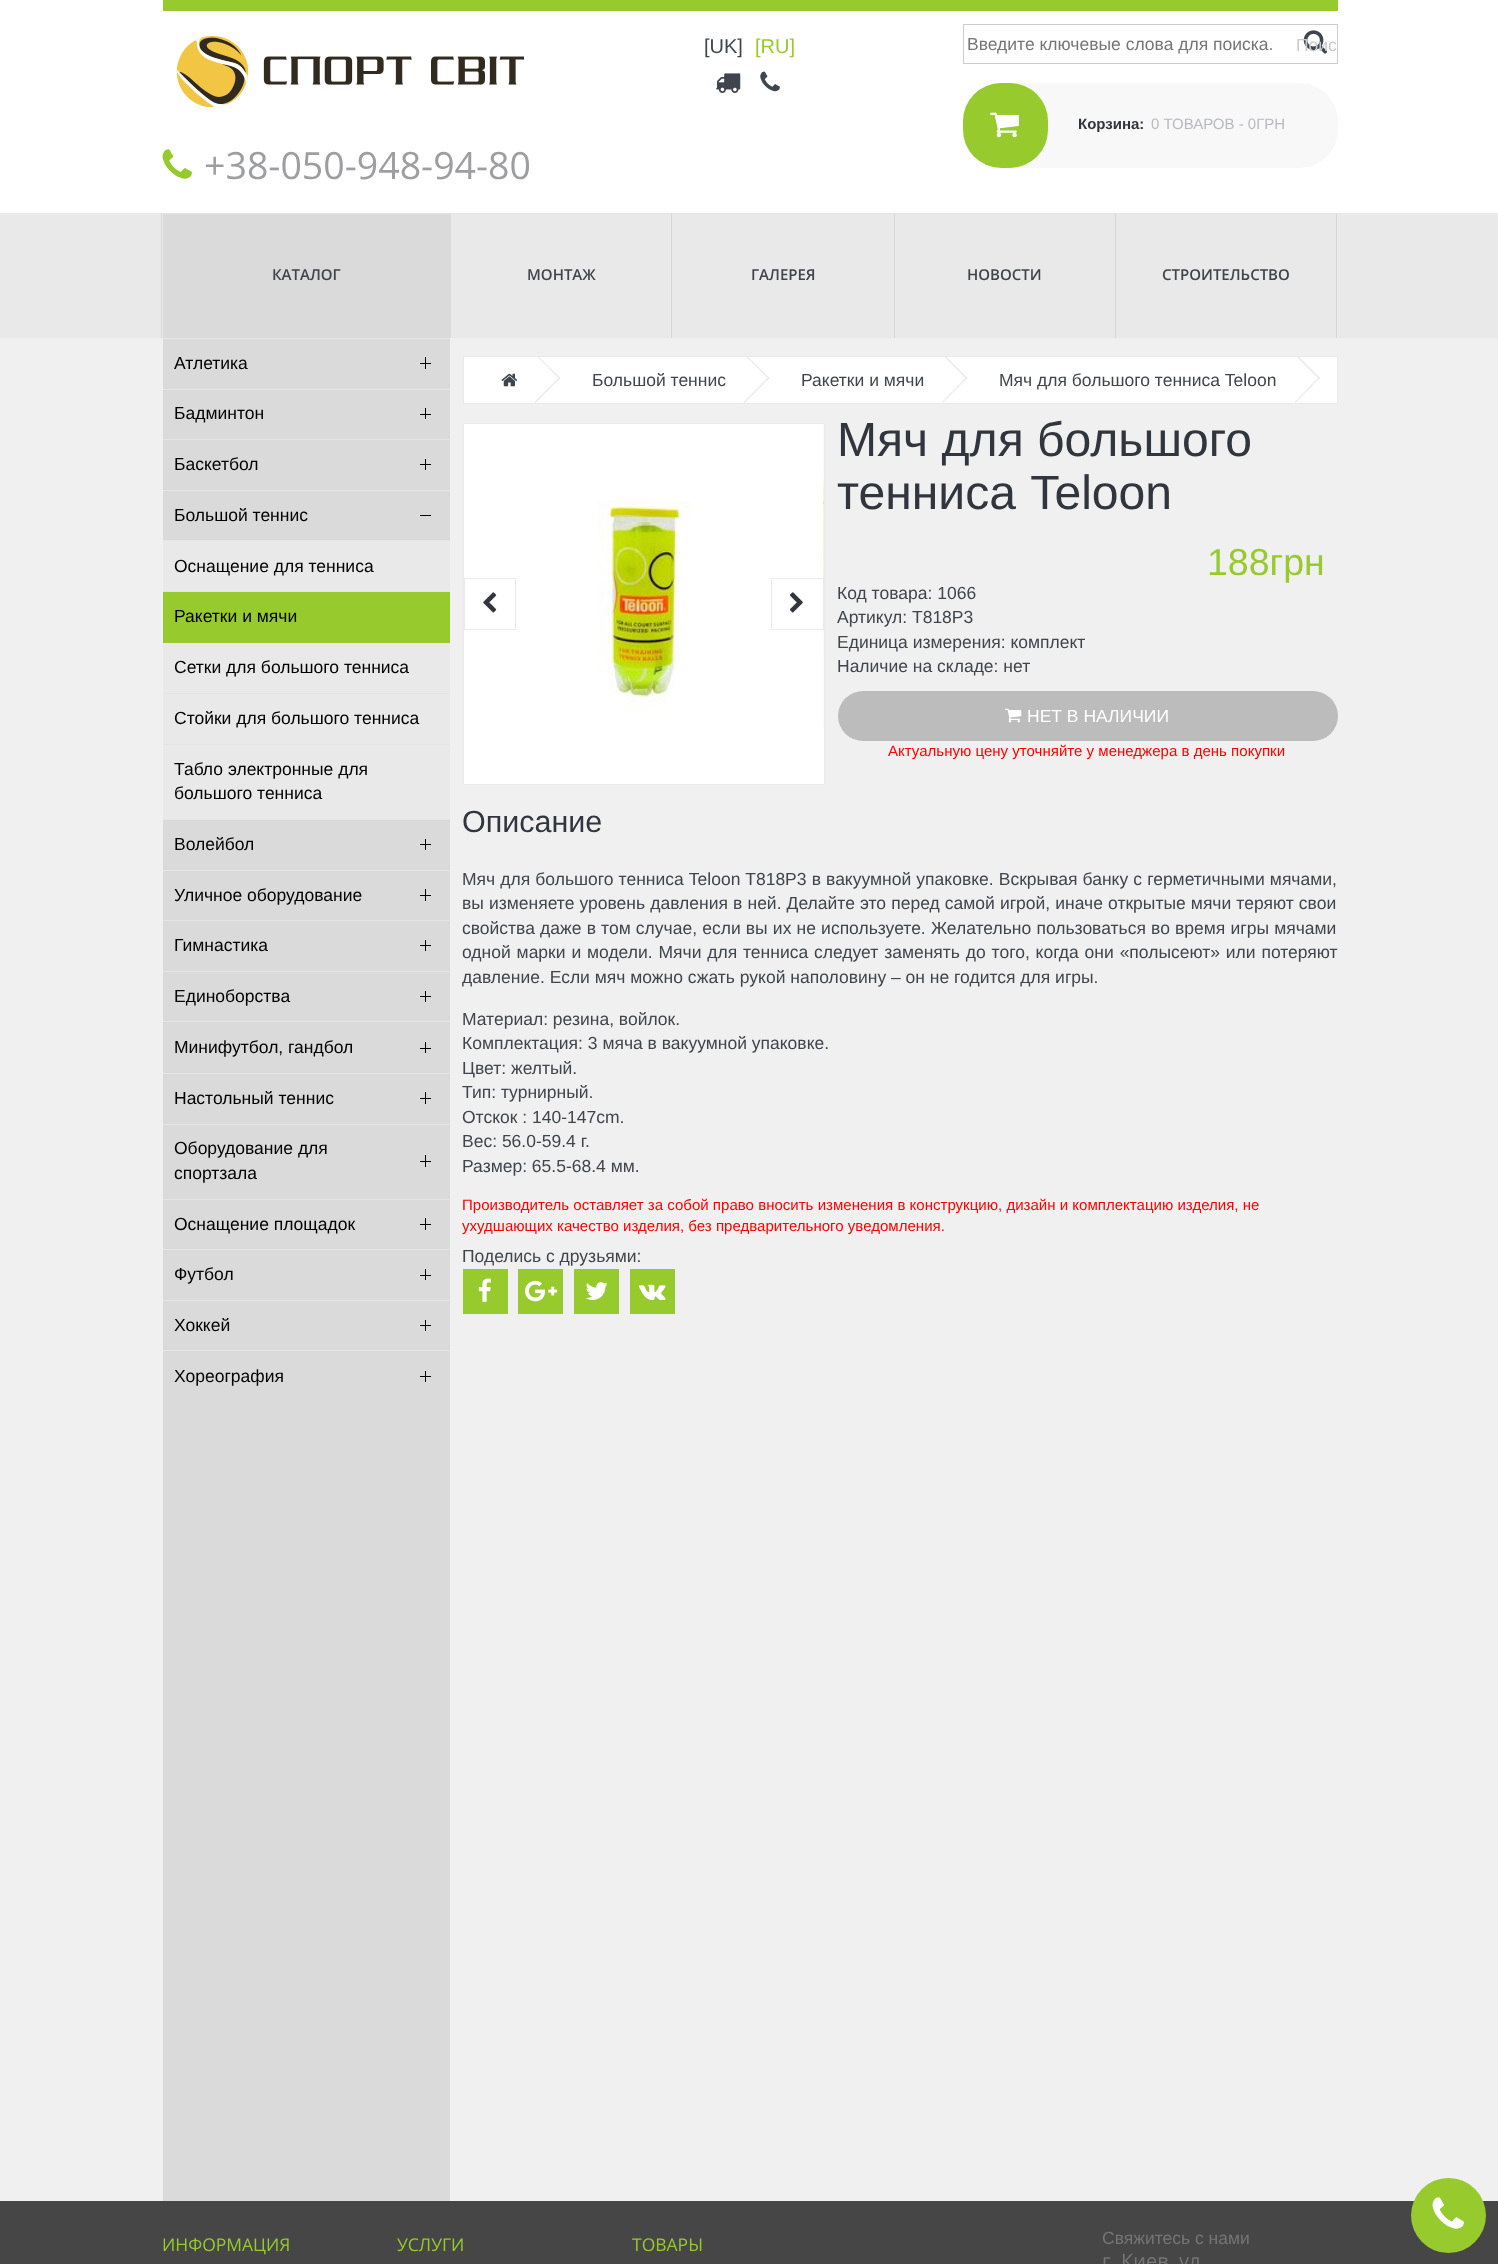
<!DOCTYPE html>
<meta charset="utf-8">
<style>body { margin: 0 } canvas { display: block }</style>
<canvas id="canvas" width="1498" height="2264"></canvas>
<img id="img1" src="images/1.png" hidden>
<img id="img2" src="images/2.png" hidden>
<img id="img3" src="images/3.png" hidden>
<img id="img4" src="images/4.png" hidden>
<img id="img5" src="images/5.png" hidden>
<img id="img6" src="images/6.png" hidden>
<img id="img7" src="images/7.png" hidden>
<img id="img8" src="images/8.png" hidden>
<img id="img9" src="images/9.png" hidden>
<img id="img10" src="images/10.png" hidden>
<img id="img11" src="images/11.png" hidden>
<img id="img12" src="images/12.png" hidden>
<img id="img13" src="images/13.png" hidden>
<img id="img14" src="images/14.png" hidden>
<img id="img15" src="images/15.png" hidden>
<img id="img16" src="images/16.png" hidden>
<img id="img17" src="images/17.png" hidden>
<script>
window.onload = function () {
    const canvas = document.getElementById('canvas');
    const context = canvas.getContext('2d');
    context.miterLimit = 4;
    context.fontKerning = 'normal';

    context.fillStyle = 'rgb(240, 240, 240)';
    context.fillRect(0, 0, 1498, 2264);
    context.fillStyle = 'rgb(255, 255, 255)';
    context.fillRect(0, 0, 1498, 213);
    context.fillStyle = 'rgb(150, 202, 45)';
    context.fillRect(163, 0, 1175, 11);
    context.drawImage(document.getElementById('img1'), 176, 35, 348, 73);
    context.strokeStyle = 'rgb(204, 204, 204)';
    context.strokeRect(963.5, 24.5, 374, 39);
    context.drawImage(document.getElementById('img2'), 1303, 30, 24, 24);
    context.fillStyle = 'rgb(248, 248, 248)';
    context.beginPath();
    context.roundRect(963, 83, 375, 85, 38);
    context.fill();
    context.fillStyle = 'rgb(150, 202, 45)';
    context.beginPath();
    context.roundRect(963, 83, 85, 85, 38);
    context.fill();
    context.drawImage(document.getElementById('img3'), 990, 112, 29, 26);
    context.drawImage(document.getElementById('img4'), 162, 149, 30, 30);
    context.fillStyle = 'rgb(70, 70, 70)';
    context.fillRect(0, 2201, 1498, 63);
    context.fillStyle = 'rgb(150, 202, 45)';
    context.beginPath();
    context.arc(1448.5, 2215.5, 37.5, 0, 2 * Math.PI);
    context.fill();
    context.drawImage(document.getElementById('img5'), 1432, 2197, 32, 32);
    context.drawImage(document.getElementById('img6'), 716, 73, 25, 20);
    context.drawImage(document.getElementById('img7'), 760, 71, 20, 21);
    context.fillStyle = 'rgb(234, 233, 233)';
    context.fillRect(0, 213, 1498, 125);
    context.fillStyle = 'rgb(216, 215, 215)';
    context.fillRect(161, 213, 1, 125);
    context.fillStyle = 'rgb(218, 218, 218)';
    context.fillRect(163, 214, 288, 124);
    context.fillStyle = 'rgb(216, 215, 215)';
    context.fillRect(671, 213, 1, 125);
    context.fillRect(894, 213, 1, 125);
    context.fillRect(1115, 213, 1, 125);
    context.fillRect(1336, 213, 1, 125);
    context.fillStyle = 'rgb(229, 229, 229)';
    context.fillRect(163, 213, 1175, 1);
    context.fillStyle = 'rgb(218, 218, 218)';
    context.fillRect(163, 339, 287, 1862);
    context.fillStyle = 'rgb(229, 229, 229)';
    context.fillRect(163, 338, 287, 1);
    context.fillStyle = 'rgb(0, 0, 0)';
    context.fillRect(420, 363, 11, 1);
    context.fillRect(425, 357, 1, 12);
    context.fillStyle = 'rgb(229, 229, 229)';
    context.fillRect(163, 389, 287, 1);
    context.fillStyle = 'rgb(0, 0, 0)';
    context.fillRect(420, 414, 11, 1);
    context.fillRect(425, 408, 1, 11);
    context.fillStyle = 'rgb(229, 229, 229)';
    context.fillRect(163, 439, 287, 1);
    context.fillStyle = 'rgb(0, 0, 0)';
    context.fillRect(420, 464, 11, 1);
    context.fillRect(425, 459, 1, 11);
    context.fillStyle = 'rgb(229, 229, 229)';
    context.fillRect(163, 490, 287, 1);
    context.fillStyle = 'rgb(0, 0, 0)';
    context.fillRect(420, 515, 11, 1);
    context.fillStyle = 'rgb(234, 233, 233)';
    context.fillRect(163, 541, 287, 278);
    context.fillStyle = 'rgb(229, 229, 229)';
    context.fillRect(163, 540, 287, 1);
    context.fillStyle = 'rgb(150, 202, 45)';
    context.fillRect(163, 592, 287, 51);
    context.fillStyle = 'rgb(229, 229, 229)';
    context.fillRect(163, 591, 287, 1);
    context.fillRect(163, 643, 287, 1);
    context.fillRect(163, 693, 287, 1);
    context.fillRect(163, 744, 287, 1);
    context.fillRect(163, 819, 287, 1);
    context.fillStyle = 'rgb(0, 0, 0)';
    context.fillRect(420, 844, 11, 1);
    context.fillRect(425, 839, 1, 11);
    context.fillStyle = 'rgb(229, 229, 229)';
    context.fillRect(163, 870, 287, 1);
    context.fillStyle = 'rgb(0, 0, 0)';
    context.fillRect(420, 895, 11, 1);
    context.fillRect(425, 889, 1, 12);
    context.fillStyle = 'rgb(229, 229, 229)';
    context.fillRect(163, 920, 287, 1);
    context.fillStyle = 'rgb(0, 0, 0)';
    context.fillRect(420, 945, 11, 1);
    context.fillRect(425, 940, 1, 11);
    context.fillStyle = 'rgb(229, 229, 229)';
    context.fillRect(163, 971, 287, 1);
    context.fillStyle = 'rgb(0, 0, 0)';
    context.fillRect(420, 996, 11, 1);
    context.fillRect(425, 991, 1, 11);
    context.fillStyle = 'rgb(229, 229, 229)';
    context.fillRect(163, 1021, 287, 1);
    context.fillStyle = 'rgb(0, 0, 0)';
    context.fillRect(420, 1048, 11, 1);
    context.fillRect(425, 1042, 1, 11);
    context.fillStyle = 'rgb(229, 229, 229)';
    context.fillRect(163, 1073, 287, 1);
    context.fillStyle = 'rgb(0, 0, 0)';
    context.fillRect(420, 1098, 11, 1);
    context.fillRect(425, 1092, 1, 12);
    context.fillStyle = 'rgb(229, 229, 229)';
    context.fillRect(163, 1124, 287, 1);
    context.fillStyle = 'rgb(0, 0, 0)';
    context.fillRect(420, 1161, 11, 1);
    context.fillRect(425, 1155, 1, 12);
    context.fillStyle = 'rgb(229, 229, 229)';
    context.fillRect(163, 1199, 287, 1);
    context.fillStyle = 'rgb(0, 0, 0)';
    context.fillRect(420, 1224, 11, 1);
    context.fillRect(425, 1218, 1, 12);
    context.fillStyle = 'rgb(229, 229, 229)';
    context.fillRect(163, 1249, 287, 1);
    context.fillStyle = 'rgb(0, 0, 0)';
    context.fillRect(420, 1275, 11, 1);
    context.fillRect(425, 1269, 1, 11);
    context.fillStyle = 'rgb(229, 229, 229)';
    context.fillRect(163, 1300, 287, 1);
    context.fillStyle = 'rgb(0, 0, 0)';
    context.fillRect(420, 1325, 11, 1);
    context.fillRect(425, 1320, 1, 11);
    context.fillStyle = 'rgb(229, 229, 229)';
    context.fillRect(163, 1350, 287, 1);
    context.fillStyle = 'rgb(0, 0, 0)';
    context.fillRect(420, 1376, 11, 1);
    context.fillRect(425, 1371, 1, 11);
    context.fillStyle = 'rgb(255, 255, 255)';
    context.beginPath();
    context.rect(463.5, 356.5, 874, 47);
    context.fill();
    context.strokeStyle = 'rgb(234, 234, 234)';
    context.stroke();
    context.drawImage(document.getElementById('img8'), 501, 373, 17, 14);
    context.fillStyle = 'rgb(234, 234, 234)';
    context.beginPath();
    context.moveTo(537.5, 357);
    context.lineTo(538, 356);
    context.lineTo(560.5, 378);
    context.lineTo(559.5, 379);
    context.closePath();
    context.fill();
    context.beginPath();
    context.moveTo(534.5, 402);
    context.lineTo(559.5, 377);
    context.lineTo(560.5, 378);
    context.lineTo(535.5, 403);
    context.closePath();
    context.fill();
    context.beginPath();
    context.moveTo(746.5, 357);
    context.lineTo(747, 356);
    context.lineTo(769.5, 378);
    context.lineTo(768.5, 379);
    context.closePath();
    context.fill();
    context.beginPath();
    context.moveTo(743.5, 402);
    context.lineTo(768.5, 377);
    context.lineTo(769.5, 378);
    context.lineTo(744.5, 403);
    context.closePath();
    context.fill();
    context.beginPath();
    context.moveTo(944.5, 357);
    context.lineTo(945.5, 356);
    context.lineTo(967.5, 378);
    context.lineTo(966.5, 379);
    context.closePath();
    context.fill();
    context.beginPath();
    context.moveTo(942, 402);
    context.lineTo(966.5, 377);
    context.lineTo(967.5, 378);
    context.lineTo(942.5, 403);
    context.closePath();
    context.fill();
    context.beginPath();
    context.moveTo(1297, 357);
    context.lineTo(1298, 356);
    context.lineTo(1320, 378);
    context.lineTo(1319, 379);
    context.closePath();
    context.fill();
    context.beginPath();
    context.moveTo(1294.5, 402);
    context.lineTo(1319, 377);
    context.lineTo(1320, 378);
    context.lineTo(1295, 403);
    context.closePath();
    context.fill();
    context.fillStyle = 'rgb(255, 255, 255)';
    context.beginPath();
    context.rect(463.5, 423.5, 361, 361);
    context.fill();
    context.stroke();
    context.strokeRect(464.5, 578.5, 51, 51);
    context.drawImage(document.getElementById('img9'), 483, 592, 14, 21);
    context.drawImage(document.getElementById('img10'), 597, 500, 96, 211);
    context.drawImage(document.getElementById('img11'), 823, 424, 1, 303);
    context.strokeRect(771.5, 578.5, 52, 51);
    context.drawImage(document.getElementById('img12'), 789, 592, 14, 21);
    context.fillStyle = 'rgb(188, 188, 188)';
    context.beginPath();
    context.roundRect(838, 691, 500, 50, 25);
    context.fill();
    context.drawImage(document.getElementById('img13'), 1005, 708, 17, 15);
    context.fillStyle = 'rgb(150, 202, 45)';
    context.fillRect(463, 1269, 45, 45);
    context.drawImage(document.getElementById('img14'), 478, 1278, 13, 24);
    context.fillRect(518, 1269, 45, 45);
    context.drawImage(document.getElementById('img15'), 525, 1280, 33, 22);
    context.fillRect(574, 1269, 45, 45);
    context.drawImage(document.getElementById('img16'), 585, 1282, 23, 18);
    context.fillRect(630, 1269, 45, 45);
    context.drawImage(document.getElementById('img17'), 638, 1284, 28, 16);
    context.font = '17.5px Liberation Sans';
    context.fillStyle = 'rgb(117, 117, 117)';
    context.fillText('Введите ключевые слова для поиска.', 967, 50);
    context.fillStyle = 'rgb(201, 203, 205)';
    context.fillText('Поис', 1296, 51);
    context.font = 'bold 15px Liberation Sans';
    context.fillStyle = 'rgb(49, 53, 61)';
    context.fillText('Корзина:', 1078, 129);
    context.font = '15px Liberation Sans';
    context.fillStyle = 'rgb(183, 186, 192)';
    context.fillText('0 ТОВАРОВ - 0ГРН', 1151, 129);
    context.font = '37.5px Open Sans';
    context.fillStyle = 'rgb(156, 158, 160)';
    context.fillText('+38-050-948-94-80', 204, 179);
    context.font = '20px Liberation Sans';
    context.fillStyle = 'rgb(63, 69, 77)';
    context.fillText('[UK]', 704, 53);
    context.fillStyle = 'rgb(150, 202, 45)';
    context.fillText('[RU]', 755, 53);
    context.font = '600 15px Open Sans';
    context.fillStyle = 'rgb(63, 69, 77)';
    context.fillText('КАТАЛОГ', 272, 280);
    context.fillText('МОНТАЖ', 527, 280);
    context.fillText('ГАЛЕРЕЯ', 751, 280);
    context.fillText('НОВОСТИ', 967, 280);
    context.fillText('СТРОИТЕЛЬСТВО', 1162, 280);
    context.font = '17.5px Liberation Sans';
    context.fillStyle = 'rgb(0, 0, 0)';
    context.fillText('Атлетика', 174, 369);
    context.fillText('Бадминтон', 174, 419);
    context.fillText('Баскетбол', 174, 470);
    context.fillText('Большой теннис', 174, 521);
    context.fillText('Оснащение для тенниса', 174, 572);
    context.fillText('Ракетки и мячи', 174, 622);
    context.fillText('Сетки для большого тенниса', 174, 673);
    context.fillText('Стойки для большого тенниса', 174, 724);
    context.fillText('Табло электронные для', 174, 775);
    context.fillText('большого тенниса', 174, 799);
    context.fillText('Волейбол', 174, 850);
    context.fillText('Уличное оборудование', 174, 901);
    context.fillText('Гимнастика', 174, 951);
    context.fillText('Единоборства', 174, 1002);
    context.fillText('Минифутбол, гандбол', 174, 1053);
    context.fillText('Настольный теннис', 174, 1104);
    context.fillText('Оборудование для', 174, 1154);
    context.fillText('спортзала', 174, 1179);
    context.fillText('Оснащение площадок', 174, 1230);
    context.fillText('Футбол', 174, 1280);
    context.fillText('Хоккей', 174, 1331);
    context.fillText('Хореография', 174, 1382);
    context.fillStyle = 'rgb(63, 69, 77)';
    context.fillText('Большой теннис', 592, 386);
    context.fillText('Ракетки и мячи', 801, 386);
    context.fillText('Мяч для большого тенниса Teloon', 999, 386);
    context.font = '48.1px Liberation Sans';
    context.fillStyle = 'rgb(49, 53, 61)';
    context.fillText('Мяч для большого', 837, 456);
    context.wordSpacing = '1px';
    context.fillText('тенниса Teloon', 837, 509);
    context.wordSpacing = '0px';
    context.font = '37.5px Liberation Sans';
    context.fillStyle = 'rgb(150, 202, 45)';
    context.fillText('188грн', 1207, 575);
    context.font = '17.5px Liberation Sans';
    context.fillStyle = 'rgb(63, 69, 77)';
    context.fillText('Код товара: 1066', 837, 599);
    context.fillText('Артикул: T818P3', 837, 623);
    context.fillText('Единица измерения: комплект', 837, 648);
    context.fillText('Наличие на складе: нет', 837, 672);
    context.fillStyle = 'rgb(255, 255, 255)';
    context.fillText('НЕТ В НАЛИЧИИ', 1027, 722);
    context.font = '15.05px Liberation Sans';
    context.fillStyle = 'rgb(255, 0, 0)';
    context.fillText('Актуальную цену уточняйте у менеджера в день покупки', 888, 756);
    context.font = '30.5px Liberation Sans';
    context.fillStyle = 'rgb(49, 53, 61)';
    context.fillText('Описание', 462, 832);
    context.wordSpacing = '0.25px';
    context.font = '17.5px Liberation Sans';
    context.fillStyle = 'rgb(63, 69, 77)';
    context.fillText('Мяч для большого тенниса Teloon T818P3 в вакуумной упаковке. Вскрывая банку с герметичными мячами,', 462, 885);
    context.fillText('вы изменяете уровень давления в ней. Делайте это перед самой игрой, иначе открытые мячи теряют свои', 462, 909);
    context.wordSpacing = '0.3px';
    context.fillText('свойства даже в том случае, если вы их не используете. Желательно пользоваться во время игры мячами', 462, 934);
    context.wordSpacing = '1px';
    context.fillText('одной марки и модели. Мячи для тенниса следует заменять до того, когда они «полысеют» или потеряют', 462, 958);
    context.wordSpacing = '0px';
    context.fillText('давление. Если мяч можно сжать рукой наполовину – он не годится для игры.', 462, 983);
    context.fillText('Материал: резина, войлок.', 462, 1025);
    context.fillText('Комплектация: 3 мяча в вакуумной упаковке.', 462, 1049);
    context.fillText('Цвет: желтый.', 462, 1074);
    context.fillText('Тип: турнирный.', 462, 1098);
    context.fillText('Отскок : 140-147cm.', 462, 1123);
    context.fillText('Вес: 56.0-59.4 г.', 462, 1147);
    context.fillText('Размер: 65.5-68.4 мм.', 462, 1172);
    context.font = '15.05px Liberation Sans';
    context.fillStyle = 'rgb(255, 0, 0)';
    context.fillText('Производитель оставляет за собой право вносить изменения в конструкцию, дизайн и комплектацию изделия, не', 462, 1210);
    context.fillText('ухудшающих качество изделия, без предварительного уведомления.', 462, 1231);
    context.font = '17.5px Liberation Sans';
    context.fillStyle = 'rgb(63, 69, 77)';
    context.fillText('Поделись с друзьями:', 462, 1262);
    context.font = '17.5px Open Sans';
    context.fillStyle = 'rgb(150, 202, 45)';
    context.fillText('ИНФОРМАЦИЯ', 162, 2251);
    context.fillText('УСЛУГИ', 397, 2251);
    context.fillText('ТОВАРЫ', 632, 2251);
    context.font = '17.5px Liberation Sans';
    context.fillStyle = 'rgb(117, 117, 117)';
    context.fillText('Свяжитесь с нами', 1102, 2244);
    context.font = '20px Open Sans';
    context.fillText('г. Киев, ул', 1102, 2268);
};
</script>
